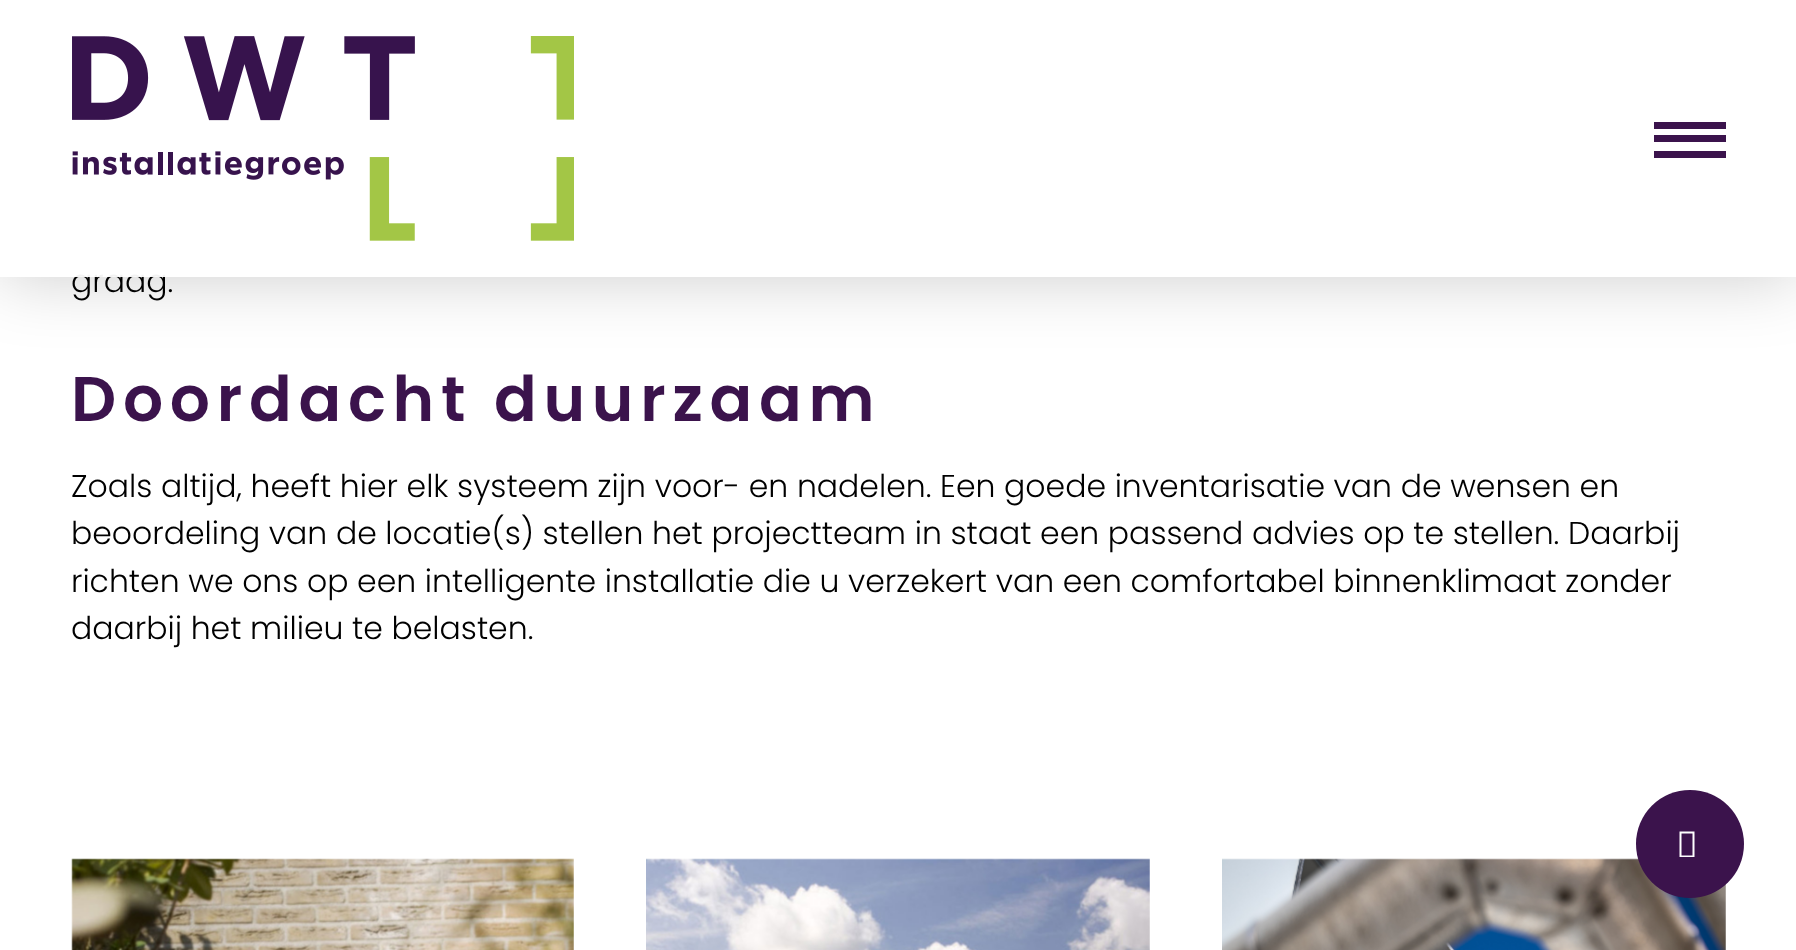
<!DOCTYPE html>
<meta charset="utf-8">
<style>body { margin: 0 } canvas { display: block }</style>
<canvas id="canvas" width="1796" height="950"></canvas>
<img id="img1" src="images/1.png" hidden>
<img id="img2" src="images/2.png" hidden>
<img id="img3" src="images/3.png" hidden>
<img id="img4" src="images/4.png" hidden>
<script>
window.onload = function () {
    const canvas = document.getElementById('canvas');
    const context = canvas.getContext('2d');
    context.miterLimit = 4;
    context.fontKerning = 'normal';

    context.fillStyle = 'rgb(255, 255, 255)';
    context.fillRect(0, 0, 1796, 950);
    context.save();
    context.beginPath();
    context.moveTo(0, 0);
    context.lineTo(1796, 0);
    context.lineTo(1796, 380);
    context.lineTo(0, 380);
    context.closePath();
    context.moveTo(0, 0);
    context.lineTo(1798, 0);
    context.lineTo(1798, 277);
    context.lineTo(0, 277);
    context.closePath();
    context.clip('evenodd');
    context.fillStyle = 'rgba(0, 0, 0, 0.2)';
    context.filter = 'blur(34px)';
    context.beginPath();
    context.rect(0, 0, 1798, 277);
    context.fill();
    context.filter = 'none';
    context.restore();
    context.drawImage(document.getElementById('img1'), 72, 36, 502, 205);
    context.fillStyle = 'rgb(59, 19, 76)';
    context.fillRect(1654, 135, 72, 7);
    context.fillRect(1654, 122, 72, 7);
    context.fillRect(1654, 151, 72, 7);
    context.drawImage(document.getElementById('img2'), 71, 858, 503, 92);
    context.drawImage(document.getElementById('img3'), 646, 858, 504, 92);
    context.drawImage(document.getElementById('img4'), 1222, 858, 504, 92);
    context.beginPath();
    context.arc(1690, 844, 54, 0, 2 * Math.PI);
    context.fill();
    context.fillStyle = 'rgb(255, 255, 255)';
    context.beginPath();
    context.moveTo(1679.5, 857);
    context.lineTo(1679.5, 831.5);
    context.lineTo(1694.5, 831.5);
    context.lineTo(1694.5, 857);
    context.closePath();
    context.moveTo(1681.5, 855.5);
    context.lineTo(1692.5, 855.5);
    context.lineTo(1692.5, 833.5);
    context.lineTo(1681.5, 833.5);
    context.closePath();
    context.fill();
    context.font = '300 31.5px Poppins';
    context.fillStyle = 'rgb(0, 0, 0)';
    context.fillText('graag.', 71, 292);
    context.fillStyle = 'rgba(255, 255, 255, 0.95)';
    context.fillRect(0, 274, 1796, 3);
    context.letterSpacing = '6.75px';
    context.font = '600 63px Poppins';
    context.fillStyle = 'rgb(59, 19, 76)';
    context.fillText('Doordacht duurzaam', 71, 421);
    context.letterSpacing = '0px';
    context.font = '300 31.5px Poppins';
    context.fillStyle = 'rgb(0, 0, 0)';
    context.fillText('Zoals altijd, heeft hier elk systeem zijn voor- en nadelen. Een goede inventarisatie van de wensen en', 71, 497);
    context.fillText('beoordeling van de locatie(s) stellen het projectteam in staat een passend advies op te stellen. Daarbij', 71, 544);
    context.fillText('richten we ons op een intelligente installatie die u verzekert van een comfortabel binnenklimaat zonder', 71, 592);
    context.fillText('daarbij het milieu te belasten.', 71, 639);
};
</script>
